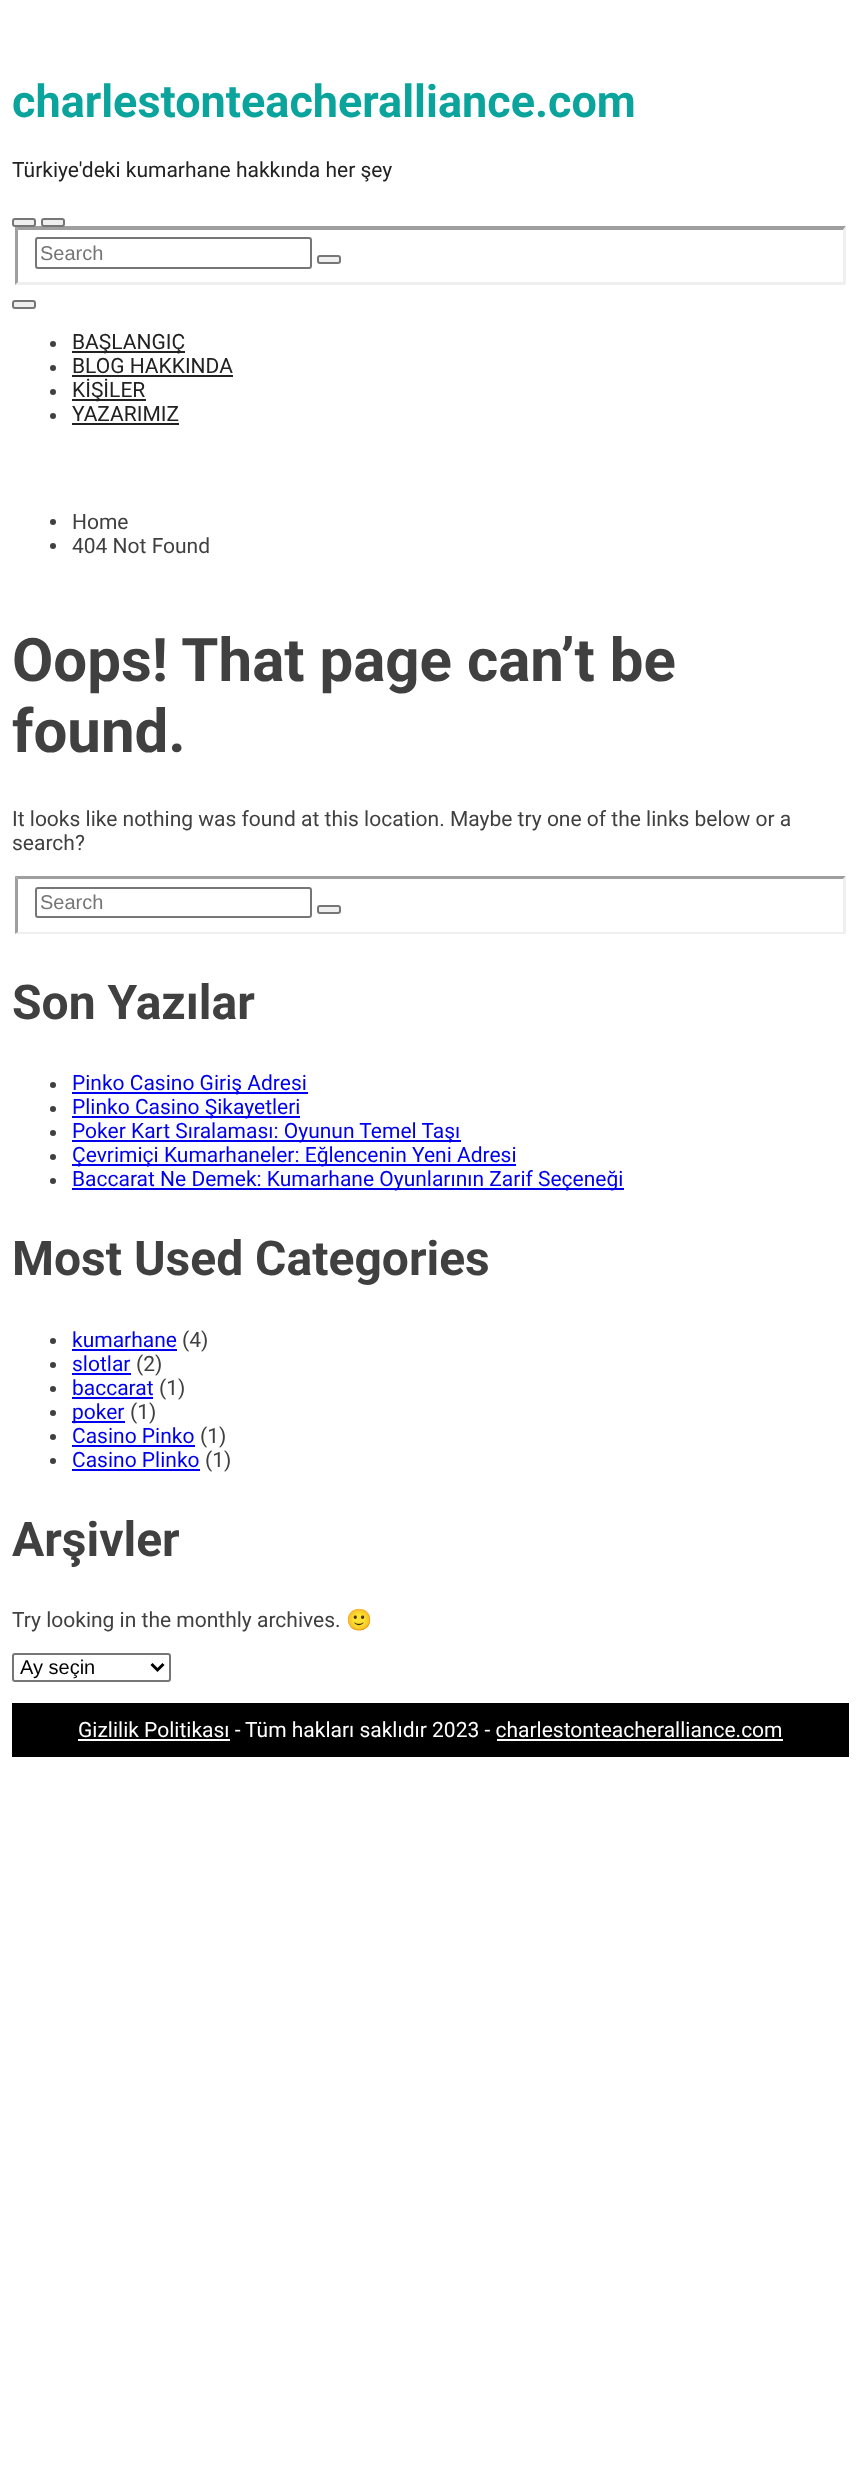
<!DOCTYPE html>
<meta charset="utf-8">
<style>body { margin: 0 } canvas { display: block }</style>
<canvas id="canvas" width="860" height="2466"></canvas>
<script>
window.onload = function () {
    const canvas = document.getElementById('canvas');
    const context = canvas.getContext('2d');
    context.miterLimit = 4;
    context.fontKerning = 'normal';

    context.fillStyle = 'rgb(255, 255, 255)';
    context.fillRect(0, 0, 860, 2466);
    context.fillStyle = 'rgb(159, 159, 159)';
    context.beginPath();
    context.moveTo(15, 226);
    context.lineTo(846, 226);
    context.lineTo(843, 230);
    context.lineTo(18, 230);
    context.closePath();
    context.fill();
    context.fillStyle = 'rgb(239, 239, 239)';
    context.beginPath();
    context.moveTo(846, 226);
    context.lineTo(846, 285);
    context.lineTo(843, 282);
    context.lineTo(843, 230);
    context.closePath();
    context.fill();
    context.beginPath();
    context.moveTo(846, 285);
    context.lineTo(15, 285);
    context.lineTo(18, 282);
    context.lineTo(843, 282);
    context.closePath();
    context.fill();
    context.fillStyle = 'rgb(159, 159, 159)';
    context.beginPath();
    context.moveTo(15, 285);
    context.lineTo(15, 226);
    context.lineTo(18, 230);
    context.lineTo(18, 282);
    context.closePath();
    context.fill();
    context.fillStyle = 'rgb(239, 239, 239)';
    context.beginPath();
    context.roundRect(13, 219, 22, 7, 2);
    context.fill();
    context.strokeStyle = 'rgb(118, 118, 118)';
    context.lineWidth = 2;
    context.stroke();
    context.beginPath();
    context.roundRect(42, 219, 22, 7, 2);
    context.fill();
    context.stroke();
    context.beginPath();
    context.roundRect(36, 238, 275, 30, 2);
    context.stroke();
    context.beginPath();
    context.roundRect(318, 256, 22, 7, 2);
    context.fill();
    context.stroke();
    context.beginPath();
    context.roundRect(13, 301, 22, 7, 2);
    context.fill();
    context.stroke();
    context.fillStyle = 'rgb(64, 64, 64)';
    context.beginPath();
    context.arc(53, 344, 3, 0, 2 * Math.PI);
    context.fill();
    context.fillStyle = 'rgb(34, 34, 34)';
    context.fillRect(72, 351, 113, 2);
    context.fillStyle = 'rgb(64, 64, 64)';
    context.beginPath();
    context.arc(53, 368, 3, 0, 2 * Math.PI);
    context.fill();
    context.fillStyle = 'rgb(34, 34, 34)';
    context.fillRect(72, 375, 161, 2);
    context.fillStyle = 'rgb(64, 64, 64)';
    context.beginPath();
    context.arc(53, 392, 3, 0, 2 * Math.PI);
    context.fill();
    context.fillStyle = 'rgb(34, 34, 34)';
    context.fillRect(72, 399, 74, 2);
    context.fillStyle = 'rgb(64, 64, 64)';
    context.beginPath();
    context.arc(53, 416, 3, 0, 2 * Math.PI);
    context.fill();
    context.fillStyle = 'rgb(34, 34, 34)';
    context.fillRect(72, 423, 107, 2);
    context.fillStyle = 'rgb(64, 64, 64)';
    context.beginPath();
    context.arc(53, 522, 3, 0, 2 * Math.PI);
    context.fill();
    context.beginPath();
    context.arc(53, 546, 3, 0, 2 * Math.PI);
    context.fill();
    context.fillStyle = 'rgb(159, 159, 159)';
    context.beginPath();
    context.moveTo(15, 876);
    context.lineTo(846, 876);
    context.lineTo(843, 879);
    context.lineTo(18, 879);
    context.closePath();
    context.fill();
    context.fillStyle = 'rgb(239, 239, 239)';
    context.beginPath();
    context.moveTo(846, 876);
    context.lineTo(846, 934);
    context.lineTo(843, 932);
    context.lineTo(843, 879);
    context.closePath();
    context.fill();
    context.beginPath();
    context.moveTo(846, 934);
    context.lineTo(15, 934);
    context.lineTo(18, 932);
    context.lineTo(843, 932);
    context.closePath();
    context.fill();
    context.fillStyle = 'rgb(159, 159, 159)';
    context.beginPath();
    context.moveTo(15, 934);
    context.lineTo(15, 876);
    context.lineTo(18, 879);
    context.lineTo(18, 932);
    context.closePath();
    context.fill();
    context.beginPath();
    context.roundRect(36, 888, 275, 29, 2);
    context.stroke();
    context.fillStyle = 'rgb(239, 239, 239)';
    context.beginPath();
    context.roundRect(318, 906, 22, 7, 2);
    context.fill();
    context.stroke();
    context.fillStyle = 'rgb(64, 64, 64)';
    context.beginPath();
    context.arc(53, 1085, 3, 0, 2 * Math.PI);
    context.fill();
    context.fillStyle = 'rgb(0, 0, 238)';
    context.fillRect(72, 1092, 236, 2);
    context.fillStyle = 'rgb(64, 64, 64)';
    context.beginPath();
    context.arc(53, 1109, 3, 0, 2 * Math.PI);
    context.fill();
    context.fillStyle = 'rgb(0, 0, 238)';
    context.fillRect(72, 1116, 228, 2);
    context.fillStyle = 'rgb(64, 64, 64)';
    context.beginPath();
    context.arc(53, 1133, 3, 0, 2 * Math.PI);
    context.fill();
    context.fillStyle = 'rgb(0, 0, 238)';
    context.fillRect(72, 1140, 389, 2);
    context.fillStyle = 'rgb(64, 64, 64)';
    context.beginPath();
    context.arc(53, 1157, 3, 0, 2 * Math.PI);
    context.fill();
    context.fillStyle = 'rgb(0, 0, 238)';
    context.fillRect(72, 1164, 444, 2);
    context.fillStyle = 'rgb(64, 64, 64)';
    context.beginPath();
    context.arc(53, 1181, 3, 0, 2 * Math.PI);
    context.fill();
    context.fillStyle = 'rgb(0, 0, 238)';
    context.fillRect(72, 1188, 552, 2);
    context.fillStyle = 'rgb(64, 64, 64)';
    context.beginPath();
    context.arc(53, 1341, 3, 0, 2 * Math.PI);
    context.fill();
    context.fillStyle = 'rgb(0, 0, 238)';
    context.fillRect(72, 1349, 105, 2);
    context.fillStyle = 'rgb(64, 64, 64)';
    context.beginPath();
    context.arc(53, 1365, 3, 0, 2 * Math.PI);
    context.fill();
    context.fillStyle = 'rgb(0, 0, 238)';
    context.fillRect(72, 1373, 59, 2);
    context.fillStyle = 'rgb(64, 64, 64)';
    context.beginPath();
    context.arc(53, 1389, 3, 0, 2 * Math.PI);
    context.fill();
    context.fillStyle = 'rgb(0, 0, 238)';
    context.fillRect(72, 1397, 81, 2);
    context.fillStyle = 'rgb(64, 64, 64)';
    context.beginPath();
    context.arc(53, 1413, 3, 0, 2 * Math.PI);
    context.fill();
    context.fillStyle = 'rgb(0, 0, 238)';
    context.fillRect(72, 1421, 53, 2);
    context.fillStyle = 'rgb(64, 64, 64)';
    context.beginPath();
    context.arc(53, 1437, 3, 0, 2 * Math.PI);
    context.fill();
    context.fillStyle = 'rgb(0, 0, 238)';
    context.fillRect(72, 1445, 123, 2);
    context.fillStyle = 'rgb(64, 64, 64)';
    context.beginPath();
    context.arc(53, 1461, 3, 0, 2 * Math.PI);
    context.fill();
    context.fillStyle = 'rgb(0, 0, 238)';
    context.fillRect(72, 1469, 128, 2);
    context.beginPath();
    context.roundRect(13, 1654, 157, 27, 2);
    context.stroke();
    context.beginPath();
    context.moveTo(151.5, 1664);
    context.lineTo(157.5, 1670);
    context.lineTo(163.5, 1664);
    context.strokeStyle = 'rgb(0, 0, 0)';
    context.lineWidth = 3;
    context.stroke();
    context.fillStyle = 'rgb(0, 0, 0)';
    context.fillRect(12, 1703, 837, 54);
    context.fillStyle = 'rgb(255, 255, 255)';
    context.fillRect(78, 1739, 152, 2);
    context.fillRect(497, 1739, 286, 2);
    context.font = 'bold 45px Roboto';
    context.fillStyle = 'rgb(10, 164, 157)';
    context.fillText('charlestonteacheralliance.com', 12, 117);
    context.font = '21px Roboto';
    context.fillStyle = 'rgb(34, 34, 34)';
    context.fillText('Türkiye\'deki kumarhane hakkında her şey', 12, 177);
    context.font = '20px Liberation Sans';
    context.fillStyle = 'rgb(117, 117, 117)';
    context.fillText('Search', 40, 260);
    context.font = '21px Roboto';
    context.fillStyle = 'rgb(34, 34, 34)';
    context.fillText('BAŞLANGIÇ', 72, 349);
    context.fillText('BLOG HAKKINDA', 72, 373);
    context.fillText('KİŞİLER', 72, 397);
    context.fillText('YAZARIMIZ', 72, 421);
    context.fillStyle = 'rgb(64, 64, 64)';
    context.fillText('Home', 72, 529);
    context.fillText('404 Not Found', 72, 553);
    context.font = 'bold 60px Roboto';
    context.fillText('Oops! That page can’t be', 12, 681);
    context.fillText('found.', 12, 752);
    context.font = '21px Roboto';
    context.fillText('It looks like nothing was found at this location. Maybe try one of the links below or a', 12, 826);
    context.fillText('search?', 12, 850);
    context.font = '20px Liberation Sans';
    context.fillStyle = 'rgb(117, 117, 117)';
    context.fillText('Search', 40, 909);
    context.font = 'bold 48px Roboto';
    context.fillStyle = 'rgb(64, 64, 64)';
    context.fillText('Son Yazılar', 12, 1019);
    context.font = '21px Roboto';
    context.fillStyle = 'rgb(0, 0, 238)';
    context.fillText('Pinko Casino Giriş Adresi', 72, 1090);
    context.fillText('Plinko Casino Şikayetleri', 72, 1114);
    context.fillText('Poker Kart Sıralaması: Oyunun Temel Taşı', 72, 1138);
    context.fillText('Çevrimiçi Kumarhaneler: Eğlencenin Yeni Adresi', 72, 1162);
    context.fillText('Baccarat Ne Demek: Kumarhane Oyunlarının Zarif Seçeneği', 72, 1186);
    context.font = 'bold 48px Roboto';
    context.fillStyle = 'rgb(64, 64, 64)';
    context.fillText('Most Used Categories', 12, 1275);
    context.font = '21px Roboto';
    context.fillStyle = 'rgb(0, 0, 238)';
    context.fillText('kumarhane', 72, 1347);
    context.fillStyle = 'rgb(64, 64, 64)';
    context.fillText('(4)', 182, 1347);
    context.fillStyle = 'rgb(0, 0, 238)';
    context.fillText('slotlar', 72, 1371);
    context.fillStyle = 'rgb(64, 64, 64)';
    context.fillText('(2)', 136, 1371);
    context.fillStyle = 'rgb(0, 0, 238)';
    context.fillText('baccarat', 72, 1395);
    context.fillStyle = 'rgb(64, 64, 64)';
    context.fillText('(1)', 159, 1395);
    context.fillStyle = 'rgb(0, 0, 238)';
    context.fillText('poker', 72, 1419);
    context.fillStyle = 'rgb(64, 64, 64)';
    context.fillText('(1)', 130, 1419);
    context.fillStyle = 'rgb(0, 0, 238)';
    context.fillText('Casino Pinko', 72, 1443);
    context.fillStyle = 'rgb(64, 64, 64)';
    context.fillText('(1)', 200, 1443);
    context.fillStyle = 'rgb(0, 0, 238)';
    context.fillText('Casino Plinko', 72, 1467);
    context.fillStyle = 'rgb(64, 64, 64)';
    context.fillText('(1)', 205, 1467);
    context.font = 'bold 48px Roboto';
    context.fillText('Arşivler', 12, 1556);
    context.font = '21px Roboto';
    context.fillText('Try looking in the monthly archives.', 12, 1627);
    context.font = '21px Noto Color Emoji';
    context.fillText('🙂', 346, 1627);
    context.font = '20px Liberation Sans';
    context.fillStyle = 'rgb(0, 0, 0)';
    context.fillText('Ay seçin', 20, 1674);
    context.font = '21px Roboto';
    context.fillStyle = 'rgb(255, 255, 255)';
    context.fillText('Gizlilik Politikası -', 78, 1737);
    context.fillText('Tüm hakları saklıdır 2023 - charlestonteacheralliance.com', 245, 1737);
};
</script>
